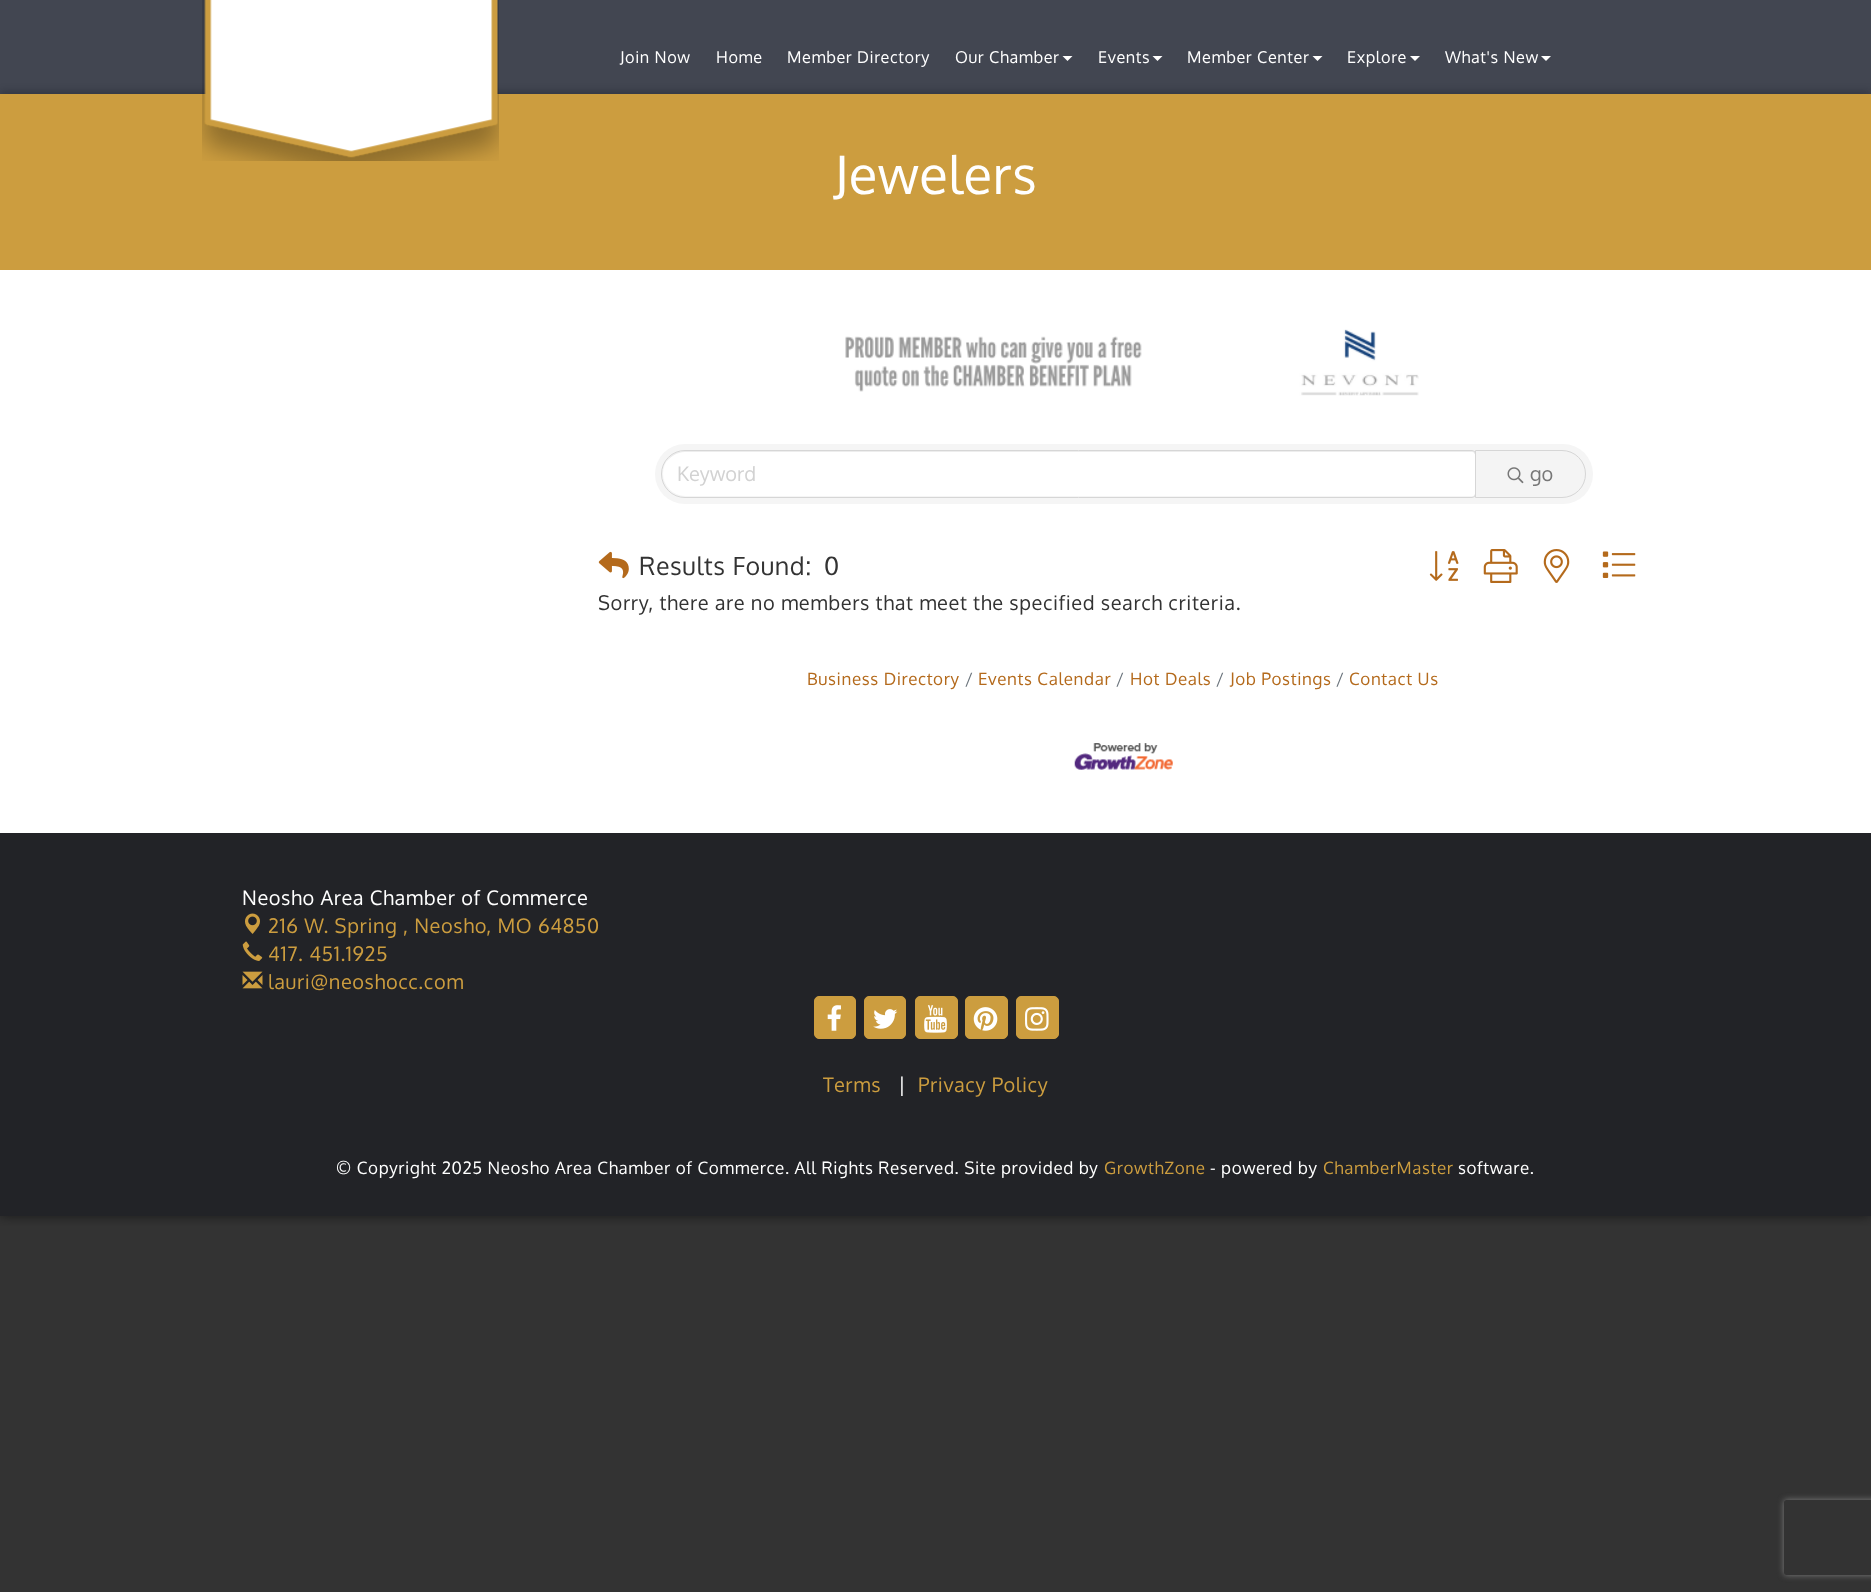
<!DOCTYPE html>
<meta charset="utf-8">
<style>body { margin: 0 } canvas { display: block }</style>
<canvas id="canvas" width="1871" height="1592"></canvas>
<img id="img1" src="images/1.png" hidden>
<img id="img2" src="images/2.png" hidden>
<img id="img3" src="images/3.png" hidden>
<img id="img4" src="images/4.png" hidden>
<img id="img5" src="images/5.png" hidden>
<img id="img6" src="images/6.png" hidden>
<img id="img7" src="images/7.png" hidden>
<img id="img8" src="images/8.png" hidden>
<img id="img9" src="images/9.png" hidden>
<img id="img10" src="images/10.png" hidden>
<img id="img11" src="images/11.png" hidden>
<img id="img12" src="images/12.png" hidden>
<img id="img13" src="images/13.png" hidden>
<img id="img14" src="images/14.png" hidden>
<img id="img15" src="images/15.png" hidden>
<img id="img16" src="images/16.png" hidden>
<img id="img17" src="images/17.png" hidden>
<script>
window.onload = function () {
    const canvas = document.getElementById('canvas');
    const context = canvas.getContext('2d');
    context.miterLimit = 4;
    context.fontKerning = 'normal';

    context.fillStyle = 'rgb(51, 51, 51)';
    context.fillRect(0, 0, 1871, 1592);
    context.fillStyle = 'rgb(243, 243, 243)';
    context.fillRect(0, 0, 1871, 94);
    context.save();
    context.beginPath();
    context.rect(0, 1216, 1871, 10);
    context.clip();
    context.fillStyle = 'rgba(0, 0, 0, 0.5)';
    context.filter = 'blur(6px)';
    context.beginPath();
    context.rect(0, 0, 1871, 1216);
    context.fill();
    context.filter = 'none';
    context.restore();
    context.fillStyle = 'rgba(0, 0, 0, 0.3)';
    context.filter = 'blur(4px)';
    context.beginPath();
    context.rect(0, 91, 1871, 177);
    context.fill();
    context.filter = 'none';
    context.fillStyle = 'rgba(21, 26, 40, 0.8)';
    context.fillRect(0, 0, 1871, 94);
    context.fillStyle = 'rgb(204, 157, 63)';
    context.fillRect(0, 94, 1871, 176);
    context.drawImage(document.getElementById('img1'), 202, 0, 297, 161);
    context.fillStyle = 'rgb(255, 255, 255)';
    context.beginPath();
    context.moveTo(1062.5, 56);
    context.lineTo(1072.5, 56);
    context.lineTo(1067.5, 61);
    context.closePath();
    context.fill();
    context.beginPath();
    context.moveTo(1152.5, 56);
    context.lineTo(1162.5, 56);
    context.lineTo(1157.5, 61);
    context.closePath();
    context.fill();
    context.beginPath();
    context.moveTo(1312.5, 56);
    context.lineTo(1322.5, 56);
    context.lineTo(1317.5, 61);
    context.closePath();
    context.fill();
    context.beginPath();
    context.moveTo(1410, 56);
    context.lineTo(1420, 56);
    context.lineTo(1415, 61);
    context.closePath();
    context.fill();
    context.beginPath();
    context.moveTo(1541, 56);
    context.lineTo(1551, 56);
    context.lineTo(1546, 61);
    context.closePath();
    context.fill();
    context.fillRect(0, 270, 1871, 563);
    context.drawImage(document.getElementById('img2'), 845, 329, 574, 67);
    context.fillStyle = 'rgb(245, 245, 245)';
    context.beginPath();
    context.roundRect(655, 444, 938, 60, 30);
    context.fill();
    context.fillStyle = 'rgb(255, 255, 255)';
    context.beginPath();
    context.roundRect(663, 451, 812, 45, [22.5, 2.5, 2.5, 22.5]);
    context.fill();
    context.fillStyle = 'rgba(0, 0, 0, 0.07)';
    context.beginPath();
    context.moveTo(685, 452);
    context.lineTo(1472, 452);
    context.bezierCurveTo(1474, 452, 1475, 454, 1475, 455);
    context.lineTo(1475, 454);
    context.bezierCurveTo(1475, 452, 1474, 451, 1472, 451);
    context.lineTo(686, 451);
    context.bezierCurveTo(676, 451, 669, 456, 665, 464);
    context.bezierCurveTo(669, 457, 677, 452, 685, 452);
    context.closePath();
    context.fill();
    context.beginPath();
    context.roundRect(661.5, 450.5, 814, 47, [23.5, 3.5, 3.5, 23.5]);
    context.strokeStyle = 'rgb(214, 214, 214)';
    context.stroke();
    context.fillStyle = 'rgb(244, 244, 244)';
    context.beginPath();
    context.roundRect(1475.5, 450.5, 110, 47, [0, 23.5, 23.5, 0]);
    context.fill();
    context.stroke();
    context.drawImage(document.getElementById('img3'), 1507, 467, 17, 17);
    context.drawImage(document.getElementById('img4'), 598, 551, 31, 28);
    context.drawImage(document.getElementById('img5'), 1429, 551, 30, 30);
    context.drawImage(document.getElementById('img6'), 1483, 549, 35, 34);
    context.drawImage(document.getElementById('img7'), 1543, 549, 27, 34);
    context.drawImage(document.getElementById('img8'), 1602, 551, 34, 27);
    context.drawImage(document.getElementById('img9'), 1074, 743, 99, 27);
    context.fillStyle = 'rgb(34, 35, 39)';
    context.fillRect(0, 833, 1871, 383);
    context.drawImage(document.getElementById('img10'), 245, 913, 15, 21);
    context.drawImage(document.getElementById('img11'), 242, 941, 21, 20);
    context.drawImage(document.getElementById('img12'), 242, 971, 21, 18);
    context.fillStyle = 'rgb(204, 157, 63)';
    context.beginPath();
    context.roundRect(814.5, 996.5, 41, 42, 4.5);
    context.fill();
    context.strokeStyle = 'rgb(204, 157, 63)';
    context.stroke();
    context.drawImage(document.getElementById('img13'), 827, 1005, 14, 26);
    context.beginPath();
    context.roundRect(864.5, 996.5, 41, 42, 4.5);
    context.fill();
    context.stroke();
    context.drawImage(document.getElementById('img14'), 873, 1009, 25, 20);
    context.beginPath();
    context.roundRect(915.5, 996.5, 42, 42, 4.5);
    context.fill();
    context.stroke();
    context.drawImage(document.getElementById('img15'), 924, 1005, 23, 28);
    context.beginPath();
    context.roundRect(965.5, 996.5, 42, 42, 4.5);
    context.fill();
    context.stroke();
    context.drawImage(document.getElementById('img16'), 973, 1007, 25, 24);
    context.beginPath();
    context.roundRect(1016.5, 996.5, 42, 42, 4.5);
    context.fill();
    context.stroke();
    context.drawImage(document.getElementById('img17'), 1025, 1007, 24, 24);
    context.save();
    context.beginPath();
    context.moveTo(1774, 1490);
    context.lineTo(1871, 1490);
    context.lineTo(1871, 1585);
    context.lineTo(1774, 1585);
    context.closePath();
    context.moveTo(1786.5, 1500);
    context.lineTo(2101.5, 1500);
    context.bezierCurveTo(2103, 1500, 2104, 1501, 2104, 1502.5);
    context.lineTo(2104, 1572.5);
    context.bezierCurveTo(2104, 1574, 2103, 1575, 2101.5, 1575);
    context.lineTo(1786.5, 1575);
    context.bezierCurveTo(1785, 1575, 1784, 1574, 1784, 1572.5);
    context.lineTo(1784, 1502.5);
    context.bezierCurveTo(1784, 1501, 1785, 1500, 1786.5, 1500);
    context.closePath();
    context.clip('evenodd');
    context.fillStyle = 'rgb(128, 128, 128)';
    context.filter = 'blur(3px)';
    context.beginPath();
    context.roundRect(1784, 1500, 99, 75, 2.5);
    context.fill();
    context.filter = 'none';
    context.restore();
    context.letterSpacing = '0.62px';
    context.font = '16.25px Oxygen';
    context.fillStyle = 'rgb(255, 255, 255)';
    context.fillText('Join Now', 620, 63);
    context.fillText('Home', 716, 63);
    context.fillText('Member Directory', 787, 63);
    context.fillText('Our Chamber', 955, 63);
    context.fillText('Events', 1098, 63);
    context.fillText('Member Center', 1187, 63);
    context.fillText('Explore', 1347, 63);
    context.fillText('What\'s New', 1445, 63);
    context.font = '52.5px Oxygen';
    context.fillText('Jewelers', 834, 194);
    context.letterSpacing = '0px';
    context.font = '20px Oxygen';
    context.fillStyle = 'rgb(210, 210, 210)';
    context.fillText('Keyword', 677, 481);
    context.fillStyle = 'rgb(119, 119, 119)';
    context.fillText('go', 1530, 481);
    context.letterSpacing = '0.62px';
    context.font = '25px Oxygen';
    context.fillStyle = 'rgb(51, 51, 51)';
    context.fillText('Results Found:', 639, 575);
    context.fillText('0', 824, 575);
    context.font = '20px Oxygen';
    context.fillText('Sorry, there are no members that meet the specified search criteria.', 598, 610);
    context.font = '17px Oxygen';
    context.fillStyle = 'rgb(180, 106, 28)';
    context.fillText('Business Directory', 807, 685);
    context.fillStyle = 'rgb(108, 117, 125)';
    context.fillText('/', 965, 685);
    context.fillStyle = 'rgb(180, 106, 28)';
    context.fillText('Events Calendar', 978, 685);
    context.fillStyle = 'rgb(108, 117, 125)';
    context.fillText('/', 1116, 685);
    context.fillStyle = 'rgb(180, 106, 28)';
    context.fillText('Hot Deals', 1130, 685);
    context.fillStyle = 'rgb(108, 117, 125)';
    context.fillText('/', 1216, 685);
    context.fillStyle = 'rgb(180, 106, 28)';
    context.fillText('Job Postings', 1230, 685);
    context.fillStyle = 'rgb(108, 117, 125)';
    context.fillText('/', 1336, 685);
    context.fillStyle = 'rgb(180, 106, 28)';
    context.fillText('Contact Us', 1349, 685);
    context.font = '20px Oxygen';
    context.fillStyle = 'rgb(255, 255, 255)';
    context.fillText('Neosho Area Chamber of Commerce', 242, 905);
    context.fillStyle = 'rgb(204, 157, 63)';
    context.fillText('216 W. Spring , Neosho, MO 64850', 268, 933);
    context.fillText('417. 451.1925', 268, 961);
    context.fillText('lauri@neoshocc.com', 268, 989);
    context.fillText('Terms', 823, 1092);
    context.fillStyle = 'rgb(255, 255, 255)';
    context.fillText('|', 898, 1092);
    context.fillStyle = 'rgb(204, 157, 63)';
    context.fillText('Privacy Policy', 918, 1092);
    context.font = '17px Oxygen';
    context.fillStyle = 'rgb(255, 255, 255)';
    context.fillText('© Copyright 2025 Neosho Area Chamber of Commerce. All Rights Reserved. Site provided by', 336, 1174);
    context.fillStyle = 'rgb(204, 157, 63)';
    context.fillText('GrowthZone', 1104, 1174);
    context.fillStyle = 'rgb(255, 255, 255)';
    context.fillText('- powered by', 1210, 1174);
    context.fillStyle = 'rgb(204, 157, 63)';
    context.fillText('ChamberMaster', 1323, 1174);
    context.fillStyle = 'rgb(255, 255, 255)';
    context.fillText('software.', 1458, 1174);
};
</script>
